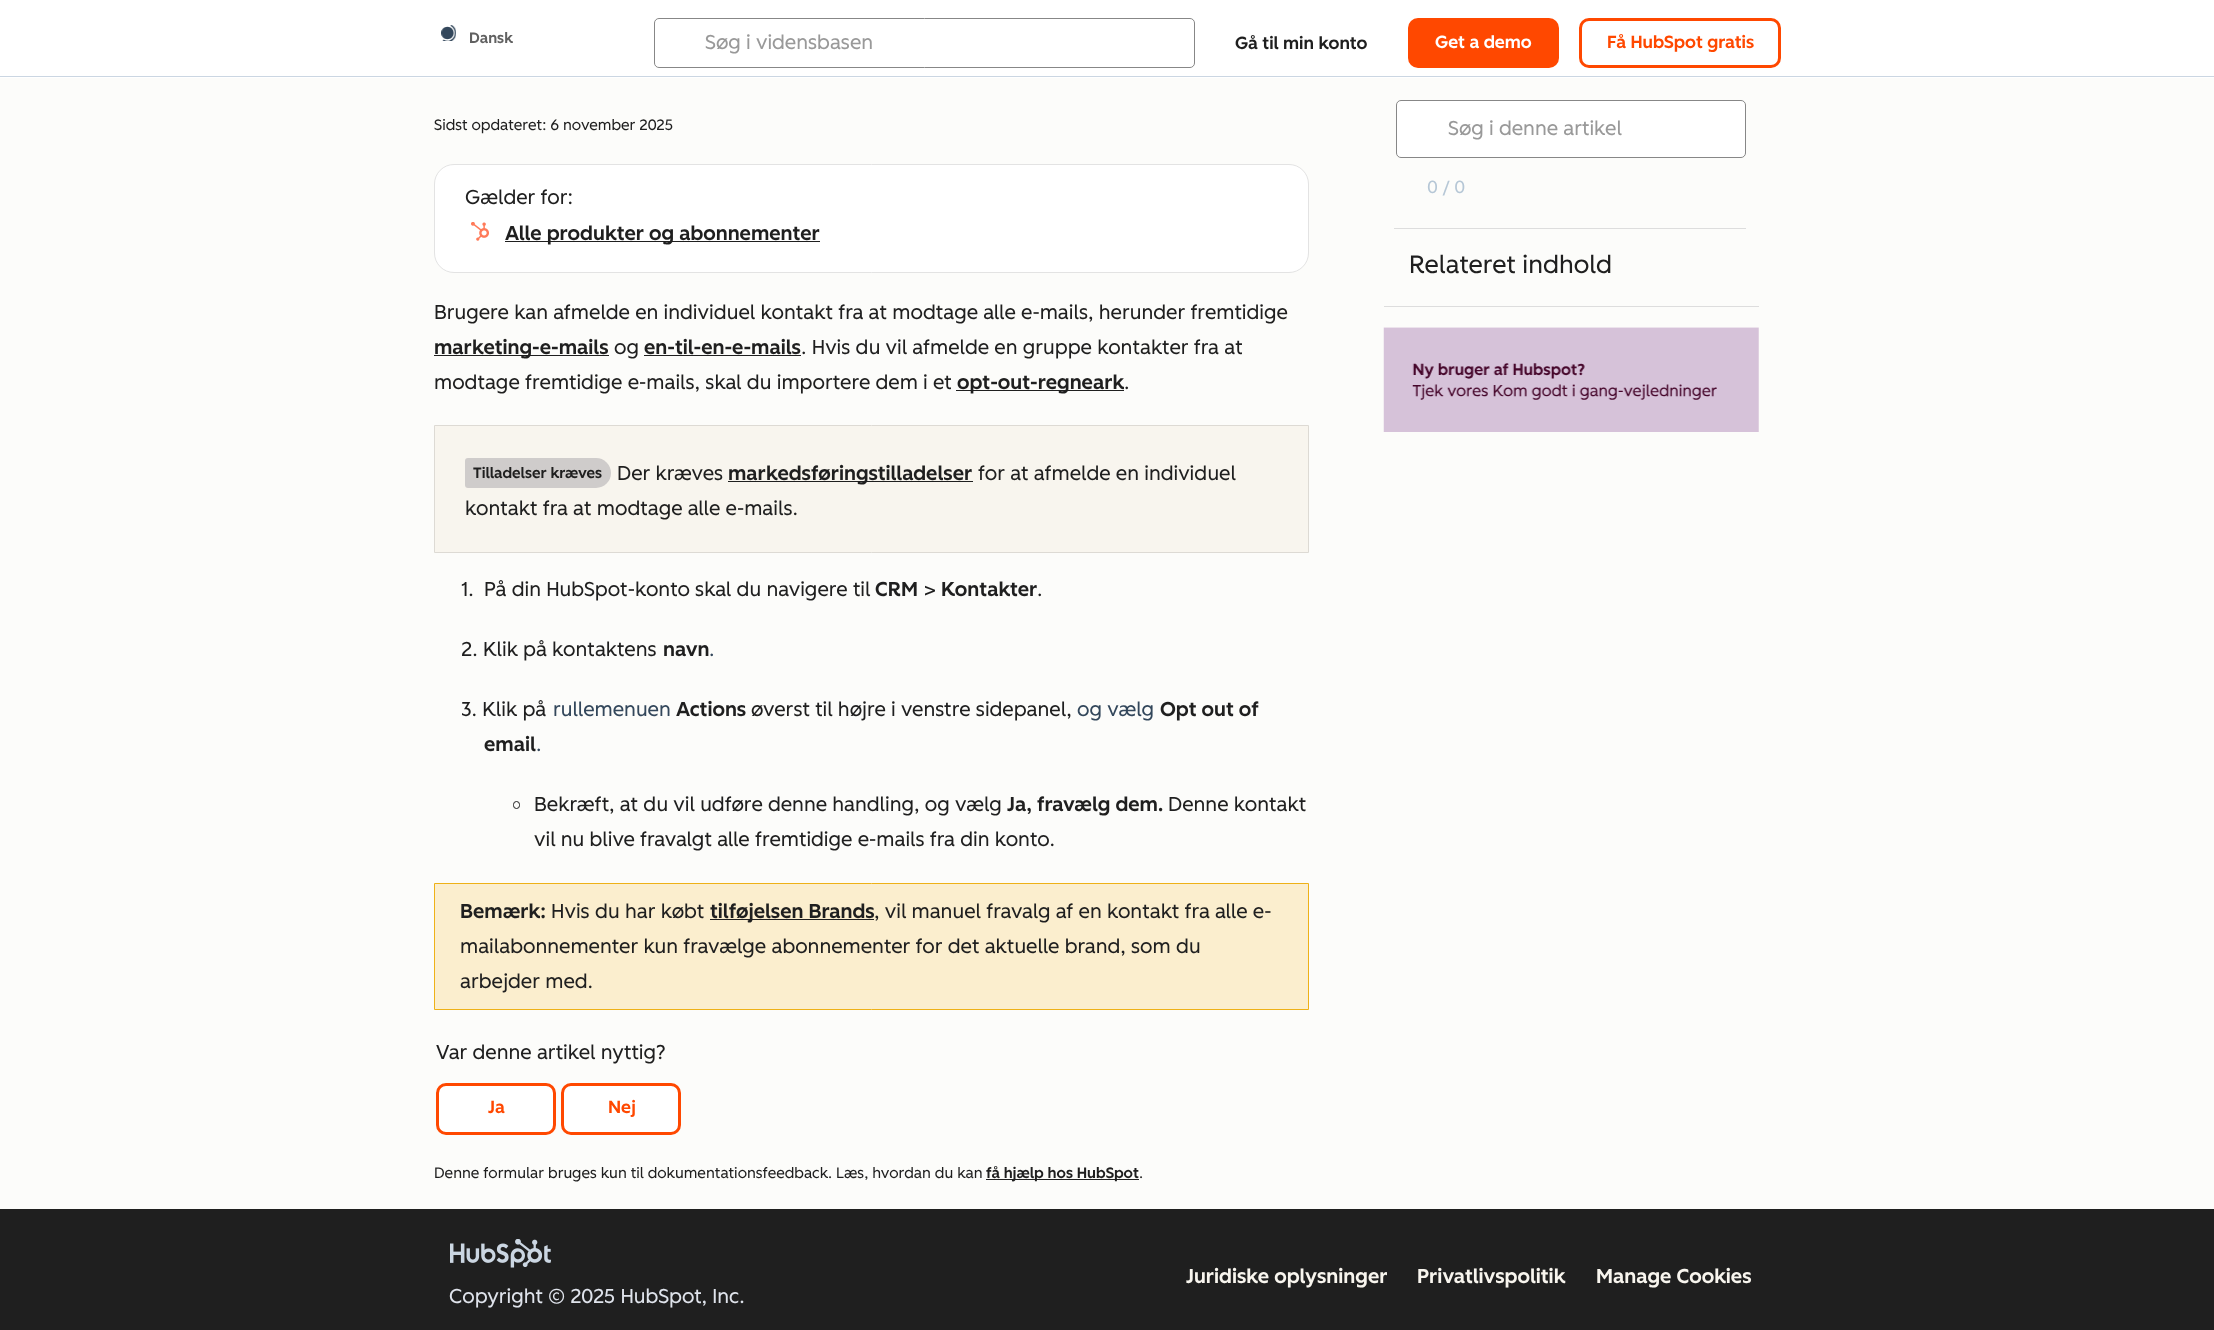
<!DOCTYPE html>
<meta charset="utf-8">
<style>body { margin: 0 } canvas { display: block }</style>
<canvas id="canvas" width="2214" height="1330"></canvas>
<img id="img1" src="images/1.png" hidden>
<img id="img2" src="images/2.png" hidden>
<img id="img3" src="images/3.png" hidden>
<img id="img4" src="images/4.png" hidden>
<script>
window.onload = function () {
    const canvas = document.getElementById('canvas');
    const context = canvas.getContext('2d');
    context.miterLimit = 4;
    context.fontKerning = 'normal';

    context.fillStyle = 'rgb(252, 252, 250)';
    context.fillRect(0, 0, 2214, 1330);
    context.fillStyle = 'rgb(255, 255, 255)';
    context.fillRect(0, 0, 2214, 78);
    context.fillStyle = 'rgb(203, 214, 226)';
    context.fillRect(0, 76, 2214, 1);
    context.drawImage(document.getElementById('img1'), 441, 25, 15, 16);
    context.beginPath();
    context.roundRect(654.5, 18.5, 540, 49, 4.5);
    context.strokeStyle = 'rgb(135, 135, 135)';
    context.stroke();
    context.fillStyle = 'rgb(255, 72, 0)';
    context.beginPath();
    context.roundRect(1408, 18, 151, 50, 10);
    context.fill();
    context.beginPath();
    context.roundRect(1580.5, 19.5, 199, 47, 8.5);
    context.strokeStyle = 'rgb(255, 72, 0)';
    context.lineWidth = 3;
    context.stroke();
    context.fillStyle = 'rgb(255, 255, 255)';
    context.beginPath();
    context.roundRect(434.5, 164.5, 874, 108, 19.5);
    context.fill();
    context.strokeStyle = 'rgb(227, 227, 227)';
    context.lineWidth = 1;
    context.stroke();
    context.drawImage(document.getElementById('img2'), 471, 222, 18, 19);
    context.fillStyle = 'rgb(31, 31, 31)';
    context.fillRect(505, 241, 315, 1);
    context.fillRect(434, 355, 175, 1);
    context.fillRect(644, 355, 157, 1);
    context.fillRect(956, 390, 168, 1);
    context.fillStyle = 'rgb(248, 245, 238)';
    context.beginPath();
    context.rect(434.5, 425.5, 874, 127);
    context.fill();
    context.strokeStyle = 'rgb(221, 218, 212)';
    context.stroke();
    context.fillStyle = 'rgb(207, 204, 203)';
    context.beginPath();
    context.roundRect(465, 458, 146, 30, [3, 15, 15, 3]);
    context.fill();
    context.fillStyle = 'rgb(31, 31, 31)';
    context.fillRect(728, 481, 245, 1);
    context.beginPath();
    context.roundRect(513.5, 801.5, 6, 7, 3);
    context.strokeStyle = 'rgb(31, 31, 31)';
    context.stroke();
    context.fillStyle = 'rgb(251, 238, 206)';
    context.beginPath();
    context.rect(434.5, 883.5, 874, 126);
    context.fill();
    context.strokeStyle = 'rgb(238, 177, 23)';
    context.stroke();
    context.fillStyle = 'rgb(31, 31, 31)';
    context.fillRect(710, 919, 164, 1);
    context.fillStyle = 'rgb(255, 255, 255)';
    context.beginPath();
    context.roundRect(437.5, 1084.5, 117, 49, 8.5);
    context.fill();
    context.strokeStyle = 'rgb(255, 72, 0)';
    context.lineWidth = 3;
    context.stroke();
    context.beginPath();
    context.roundRect(562.5, 1084.5, 117, 49, 8.5);
    context.fill();
    context.stroke();
    context.fillStyle = 'rgb(31, 31, 31)';
    context.fillRect(986, 1179, 153, 1);
    context.fillStyle = 'rgb(255, 255, 255)';
    context.beginPath();
    context.roundRect(1396.5, 100.5, 349, 57, 4.5);
    context.fill();
    context.strokeStyle = 'rgb(135, 135, 135)';
    context.lineWidth = 1;
    context.stroke();
    context.fillStyle = 'rgb(221, 221, 221)';
    context.fillRect(1394, 228, 352, 1);
    context.fillRect(1384, 306, 375, 1);
    context.drawImage(document.getElementById('img3'), 1383, 327, 376, 105);
    context.fillStyle = 'rgb(31, 31, 31)';
    context.fillRect(0, 1209, 2214, 121);
    context.drawImage(document.getElementById('img4'), 450, 1239, 101, 29);
    context.font = '500 15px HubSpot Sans';
    context.fillStyle = 'rgb(97, 97, 97)';
    context.fillText('Dansk', 469, 43);
    context.font = '20px HubSpot Sans';
    context.fillStyle = 'rgb(153, 153, 153)';
    context.fillText('Søg i vidensbasen', 705, 49);
    context.font = '500 17.5px HubSpot Sans';
    context.fillStyle = 'rgb(31, 31, 31)';
    context.fillText('Gå til min konto', 1235, 49);
    context.fillStyle = 'rgb(255, 255, 255)';
    context.fillText('Get a demo', 1435, 48);
    context.fillStyle = 'rgb(255, 72, 0)';
    context.fillText('Få HubSpot gratis', 1607, 48);
    context.font = '15px HubSpot Sans';
    context.fillStyle = 'rgb(31, 31, 31)';
    context.fillText('Sidst opdateret: 6 november 2025', 434, 130);
    context.font = '20px HubSpot Sans';
    context.fillText('Gælder for:', 465, 204);
    context.font = '500 20px HubSpot Sans';
    context.fillText('Alle produkter og abonnementer', 505, 240);
    context.font = '20px HubSpot Sans';
    context.fillText('Brugere kan afmelde en individuel kontakt fra at modtage alle e-mails, herunder fremtidige', 434, 319);
    context.font = '500 20px HubSpot Sans';
    context.fillText('marketing-e-mails', 434, 354);
    context.font = '20px HubSpot Sans';
    context.fillText('og', 614, 354);
    context.font = '500 20px HubSpot Sans';
    context.fillText('en-til-en-e-mails', 644, 354);
    context.font = '20px HubSpot Sans';
    context.fillText('. Hvis du vil afmelde en gruppe kontakter fra at', 801, 354);
    context.fillText('modtage fremtidige e-mails, skal du importere dem i et', 434, 389);
    context.font = '500 20px HubSpot Sans';
    context.fillText('opt-out-regneark', 957, 389);
    context.font = '20px HubSpot Sans';
    context.fillText('.', 1124, 389);
    context.font = '500 15px HubSpot Sans';
    context.fillText('Tilladelser kræves', 473, 478);
    context.font = '20px HubSpot Sans';
    context.fillText('Der kræves', 617, 480);
    context.font = '500 20px HubSpot Sans';
    context.fillText('markedsføringstilladelser', 728, 480);
    context.font = '20px HubSpot Sans';
    context.fillText('for at afmelde en individuel', 978, 480);
    context.fillText('kontakt fra at modtage alle e-mails.', 465, 515);
    context.fillText('1.', 461, 596);
    context.fillText('På din HubSpot-konto skal du navigere til', 484, 596);
    context.font = '500 20px HubSpot Sans';
    context.fillText('CRM', 875, 596);
    context.font = '20px HubSpot Sans';
    context.fillText('>', 924, 596);
    context.font = '500 20px HubSpot Sans';
    context.fillText('Kontakter', 941, 596);
    context.font = '20px HubSpot Sans';
    context.fillText('.', 1037, 596);
    context.fillText('2. Klik på kontaktens', 461, 656);
    context.font = '500 20px HubSpot Sans';
    context.fillText('navn', 663, 656);
    context.font = '20px HubSpot Sans';
    context.fillStyle = 'rgb(51, 71, 91)';
    context.fillText('.', 709, 656);
    context.fillStyle = 'rgb(31, 31, 31)';
    context.fillText('3. Klik på', 461, 716);
    context.fillStyle = 'rgb(51, 71, 91)';
    context.fillText('rullemenuen', 553, 716);
    context.font = '500 20px HubSpot Sans';
    context.fillStyle = 'rgb(31, 31, 31)';
    context.fillText('Actions', 676, 716);
    context.font = '20px HubSpot Sans';
    context.fillText('øverst til højre i venstre sidepanel,', 751, 716);
    context.fillStyle = 'rgb(51, 71, 91)';
    context.fillText('og vælg', 1077, 716);
    context.font = '500 20px HubSpot Sans';
    context.fillStyle = 'rgb(31, 31, 31)';
    context.fillText('Opt out of', 1160, 716);
    context.fillText('email', 484, 751);
    context.font = '20px HubSpot Sans';
    context.fillStyle = 'rgb(51, 71, 91)';
    context.fillText('.', 536, 751);
    context.fillStyle = 'rgb(31, 31, 31)';
    context.fillText('Bekræft, at du vil udføre denne handling, og vælg', 534, 811);
    context.font = '500 20px HubSpot Sans';
    context.fillText('Ja, fravælg dem.', 1007, 811);
    context.font = '20px HubSpot Sans';
    context.fillText('Denne kontakt', 1168, 811);
    context.fillText('vil nu blive fravalgt alle fremtidige e-mails fra din konto.', 534, 846);
    context.font = '500 20px HubSpot Sans';
    context.fillText('Bemærk:', 460, 918);
    context.font = '20px HubSpot Sans';
    context.fillText('Hvis du har købt', 551, 918);
    context.font = '500 20px HubSpot Sans';
    context.fillText('tilføjelsen Brands', 710, 918);
    context.font = '20px HubSpot Sans';
    context.fillText(', vil manuel fravalg af en kontakt fra alle e-', 874, 918);
    context.fillText('mailabonnementer kun fravælge abonnementer for det aktuelle brand, som du', 460, 953);
    context.fillText('arbejder med.', 460, 988);
    context.fillText('Var denne artikel nyttig?', 436, 1059);
    context.font = '500 17.5px HubSpot Sans';
    context.fillStyle = 'rgb(255, 72, 0)';
    context.fillText('Ja', 488, 1113);
    context.fillText('Nej', 608, 1113);
    context.font = '15px HubSpot Sans';
    context.fillStyle = 'rgb(31, 31, 31)';
    context.fillText('Denne formular bruges kun til dokumentationsfeedback. Læs, hvordan du kan', 434, 1178);
    context.font = '500 15px HubSpot Sans';
    context.fillText('få hjælp hos HubSpot', 986, 1178);
    context.font = '15px HubSpot Sans';
    context.fillText('.', 1139, 1178);
    context.font = '20px HubSpot Sans';
    context.fillStyle = 'rgb(153, 153, 153)';
    context.fillText('Søg i denne artikel', 1448, 135);
    context.font = '17.5px HubSpot Sans';
    context.fillStyle = 'rgb(182, 199, 214)';
    context.fillText('0 / 0', 1427, 193);
    context.font = '25px HubSpot Sans';
    context.fillStyle = 'rgb(31, 31, 31)';
    context.fillText('Relateret indhold', 1409, 273);
    context.font = '500 20px HubSpot Sans';
    context.fillStyle = 'rgb(248, 245, 238)';
    context.fillText('Juridiske oplysninger', 1186, 1283);
    context.fillText('Privatlivspolitik', 1417, 1283);
    context.fillText('Manage Cookies', 1596, 1283);
    context.font = '20px HubSpot Sans';
    context.fillStyle = 'rgb(223, 227, 235)';
    context.fillText('Copyright © 2025 HubSpot, Inc.', 449, 1303);
};
</script>
